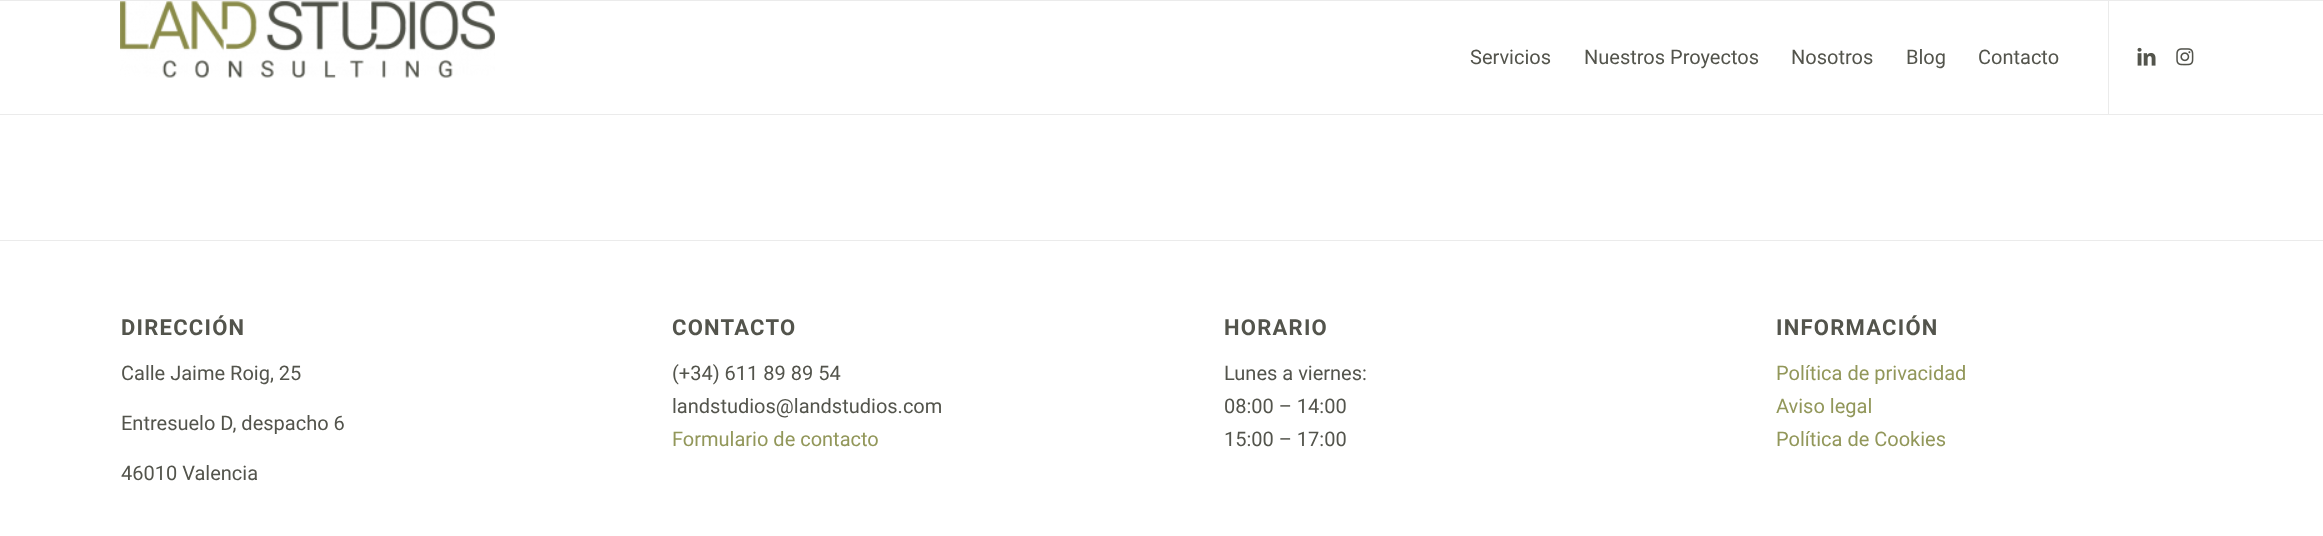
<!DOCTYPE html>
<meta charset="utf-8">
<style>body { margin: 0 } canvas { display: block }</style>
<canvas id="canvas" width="2323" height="536"></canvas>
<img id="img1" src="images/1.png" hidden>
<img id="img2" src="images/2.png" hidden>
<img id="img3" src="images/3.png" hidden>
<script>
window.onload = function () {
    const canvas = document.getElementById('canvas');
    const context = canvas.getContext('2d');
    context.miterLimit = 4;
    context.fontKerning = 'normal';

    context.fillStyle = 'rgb(255, 255, 255)';
    context.fillRect(0, 0, 2323, 536);
    context.fillStyle = 'rgb(235, 235, 235)';
    context.fillRect(0, 0, 2323, 1);
    context.fillRect(0, 114, 2323, 1);
    context.drawImage(document.getElementById('img1'), 120, 1, 375, 77);
    context.fillRect(2108, 1, 1, 113);
    context.drawImage(document.getElementById('img2'), 2137, 47, 19, 19);
    context.drawImage(document.getElementById('img3'), 2176, 48, 18, 18);
    context.fillRect(0, 240, 2323, 1);
    context.font = '20px Roboto';
    context.fillStyle = 'rgb(83, 84, 76)';
    context.fillText('Servicios', 1470, 64);
    context.fillText('Nuestros Proyectos', 1584, 64);
    context.fillText('Nosotros', 1791, 64);
    context.fillText('Blog', 1906, 64);
    context.fillText('Contacto', 1978, 64);
    context.letterSpacing = '1.25px';
    context.font = 'bold 22px Roboto';
    context.fillText('DIRECCIÓN', 121, 335);
    context.letterSpacing = '0px';
    context.font = '20px Roboto';
    context.fillText('Calle Jaime Roig, 25', 121, 380);
    context.fillText('Entresuelo D, despacho 6', 121, 430);
    context.fillText('46010 Valencia', 121, 480);
    context.letterSpacing = '1.25px';
    context.font = 'bold 22px Roboto';
    context.fillText('CONTACTO', 672, 335);
    context.letterSpacing = '0px';
    context.font = '20px Roboto';
    context.fillText('(+34) 611 89 89 54', 672, 380);
    context.fillText('landstudios@landstudios.com', 672, 413);
    context.fillStyle = 'rgb(146, 151, 90)';
    context.fillText('Formulario de contacto', 672, 446);
    context.letterSpacing = '1.25px';
    context.font = 'bold 22px Roboto';
    context.fillStyle = 'rgb(83, 84, 76)';
    context.fillText('HORARIO', 1224, 335);
    context.letterSpacing = '0px';
    context.font = '20px Roboto';
    context.fillText('Lunes a viernes:', 1224, 380);
    context.fillText('08:00 – 14:00', 1224, 413);
    context.fillText('15:00 – 17:00', 1224, 446);
    context.letterSpacing = '1.25px';
    context.font = 'bold 22px Roboto';
    context.fillText('INFORMACIÓN', 1776, 335);
    context.letterSpacing = '0px';
    context.font = '20px Roboto';
    context.fillStyle = 'rgb(146, 151, 90)';
    context.fillText('Política de privacidad', 1776, 380);
    context.fillText('Aviso legal', 1776, 413);
    context.fillText('Política de Cookies', 1776, 446);
};
</script>
